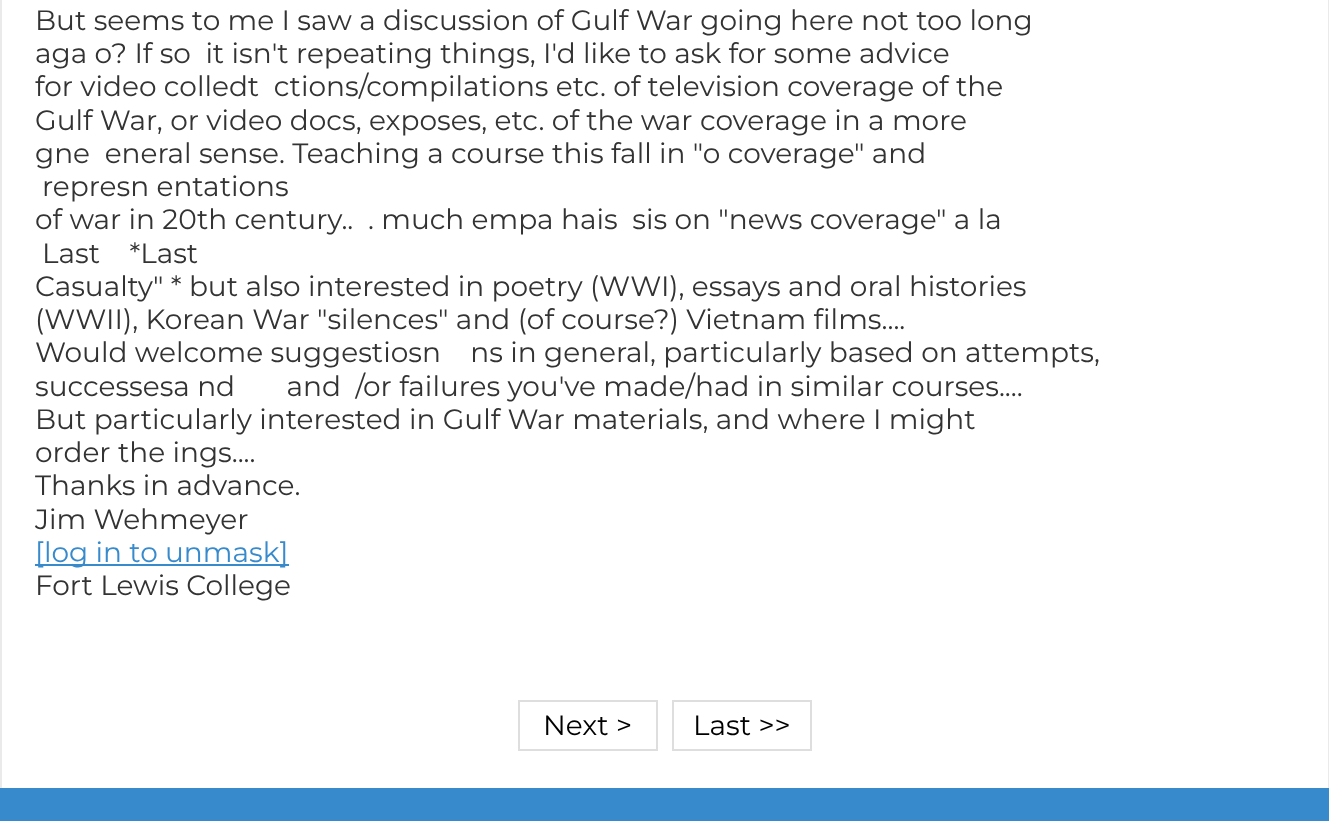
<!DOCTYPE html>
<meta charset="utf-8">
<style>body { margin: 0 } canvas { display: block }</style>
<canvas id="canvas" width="1329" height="821"></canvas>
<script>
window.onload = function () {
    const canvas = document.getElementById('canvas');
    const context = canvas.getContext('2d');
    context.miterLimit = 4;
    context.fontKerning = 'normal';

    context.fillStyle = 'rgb(255, 255, 255)';
    context.fillRect(0, 0, 1329, 821);
    context.fillStyle = 'rgb(234, 234, 234)';
    context.fillRect(1328, 0, 1, 788);
    context.fillRect(0, 0, 2, 788);
    context.fillStyle = 'rgb(55, 138, 204)';
    context.fillRect(35, 564, 254, 2);
    context.strokeStyle = 'rgb(222, 222, 222)';
    context.lineWidth = 2;
    context.strokeRect(519, 701, 138, 49);
    context.strokeRect(673, 701, 138, 49);
    context.fillRect(0, 788, 1329, 33);
    context.font = '100 28px Montserrat';
    context.fillStyle = 'rgb(51, 51, 51)';
    context.fillText('But seems to me I saw a discussion of Gulf War going here not too long', 35, 30);
    context.fillText('aga o? If so  it isn\'t repeating things, I\'d like to ask for some advice', 35, 63);
    context.fillText('for video colledt  ctions/compilations etc. of television coverage of the', 35, 96);
    context.fillText('Gulf War, or video docs, exposes, etc. of the war coverage in a more', 35, 130);
    context.fillText('gne  eneral sense. Teaching a course this fall in "o coverage" and', 35, 163);
    context.fillText('represn entations', 42, 196);
    context.fillText('of war in 20th century..  . much empa hais  sis on "news coverage" a la', 35, 229);
    context.fillText('Last    *Last', 42, 263);
    context.fillText('Casualty" * but also interested in poetry (WWI), essays and oral histories', 35, 296);
    context.fillText('(WWII), Korean War "silences" and (of course?) Vietnam films....', 35, 329);
    context.fillText('Would welcome suggestiosn    ns in general, particularly based on attempts,', 35, 362);
    context.fillText('successesa nd       and  /or failures you\'ve made/had in similar courses....', 35, 396);
    context.fillText('But particularly interested in Gulf War materials, and where I might', 35, 429);
    context.fillText('order the ings....', 35, 462);
    context.fillText('Thanks in advance.', 35, 495);
    context.fillText('Jim Wehmeyer', 35, 529);
    context.fillStyle = 'rgb(55, 138, 204)';
    context.fillText('[log in to unmask]', 35, 562);
    context.fillStyle = 'rgb(51, 51, 51)';
    context.fillText('Fort Lewis College', 35, 595);
    context.fillStyle = 'rgb(0, 0, 0)';
    context.fillText('Next >', 543, 735);
    context.fillText('Last >>', 693, 735);
};
</script>
